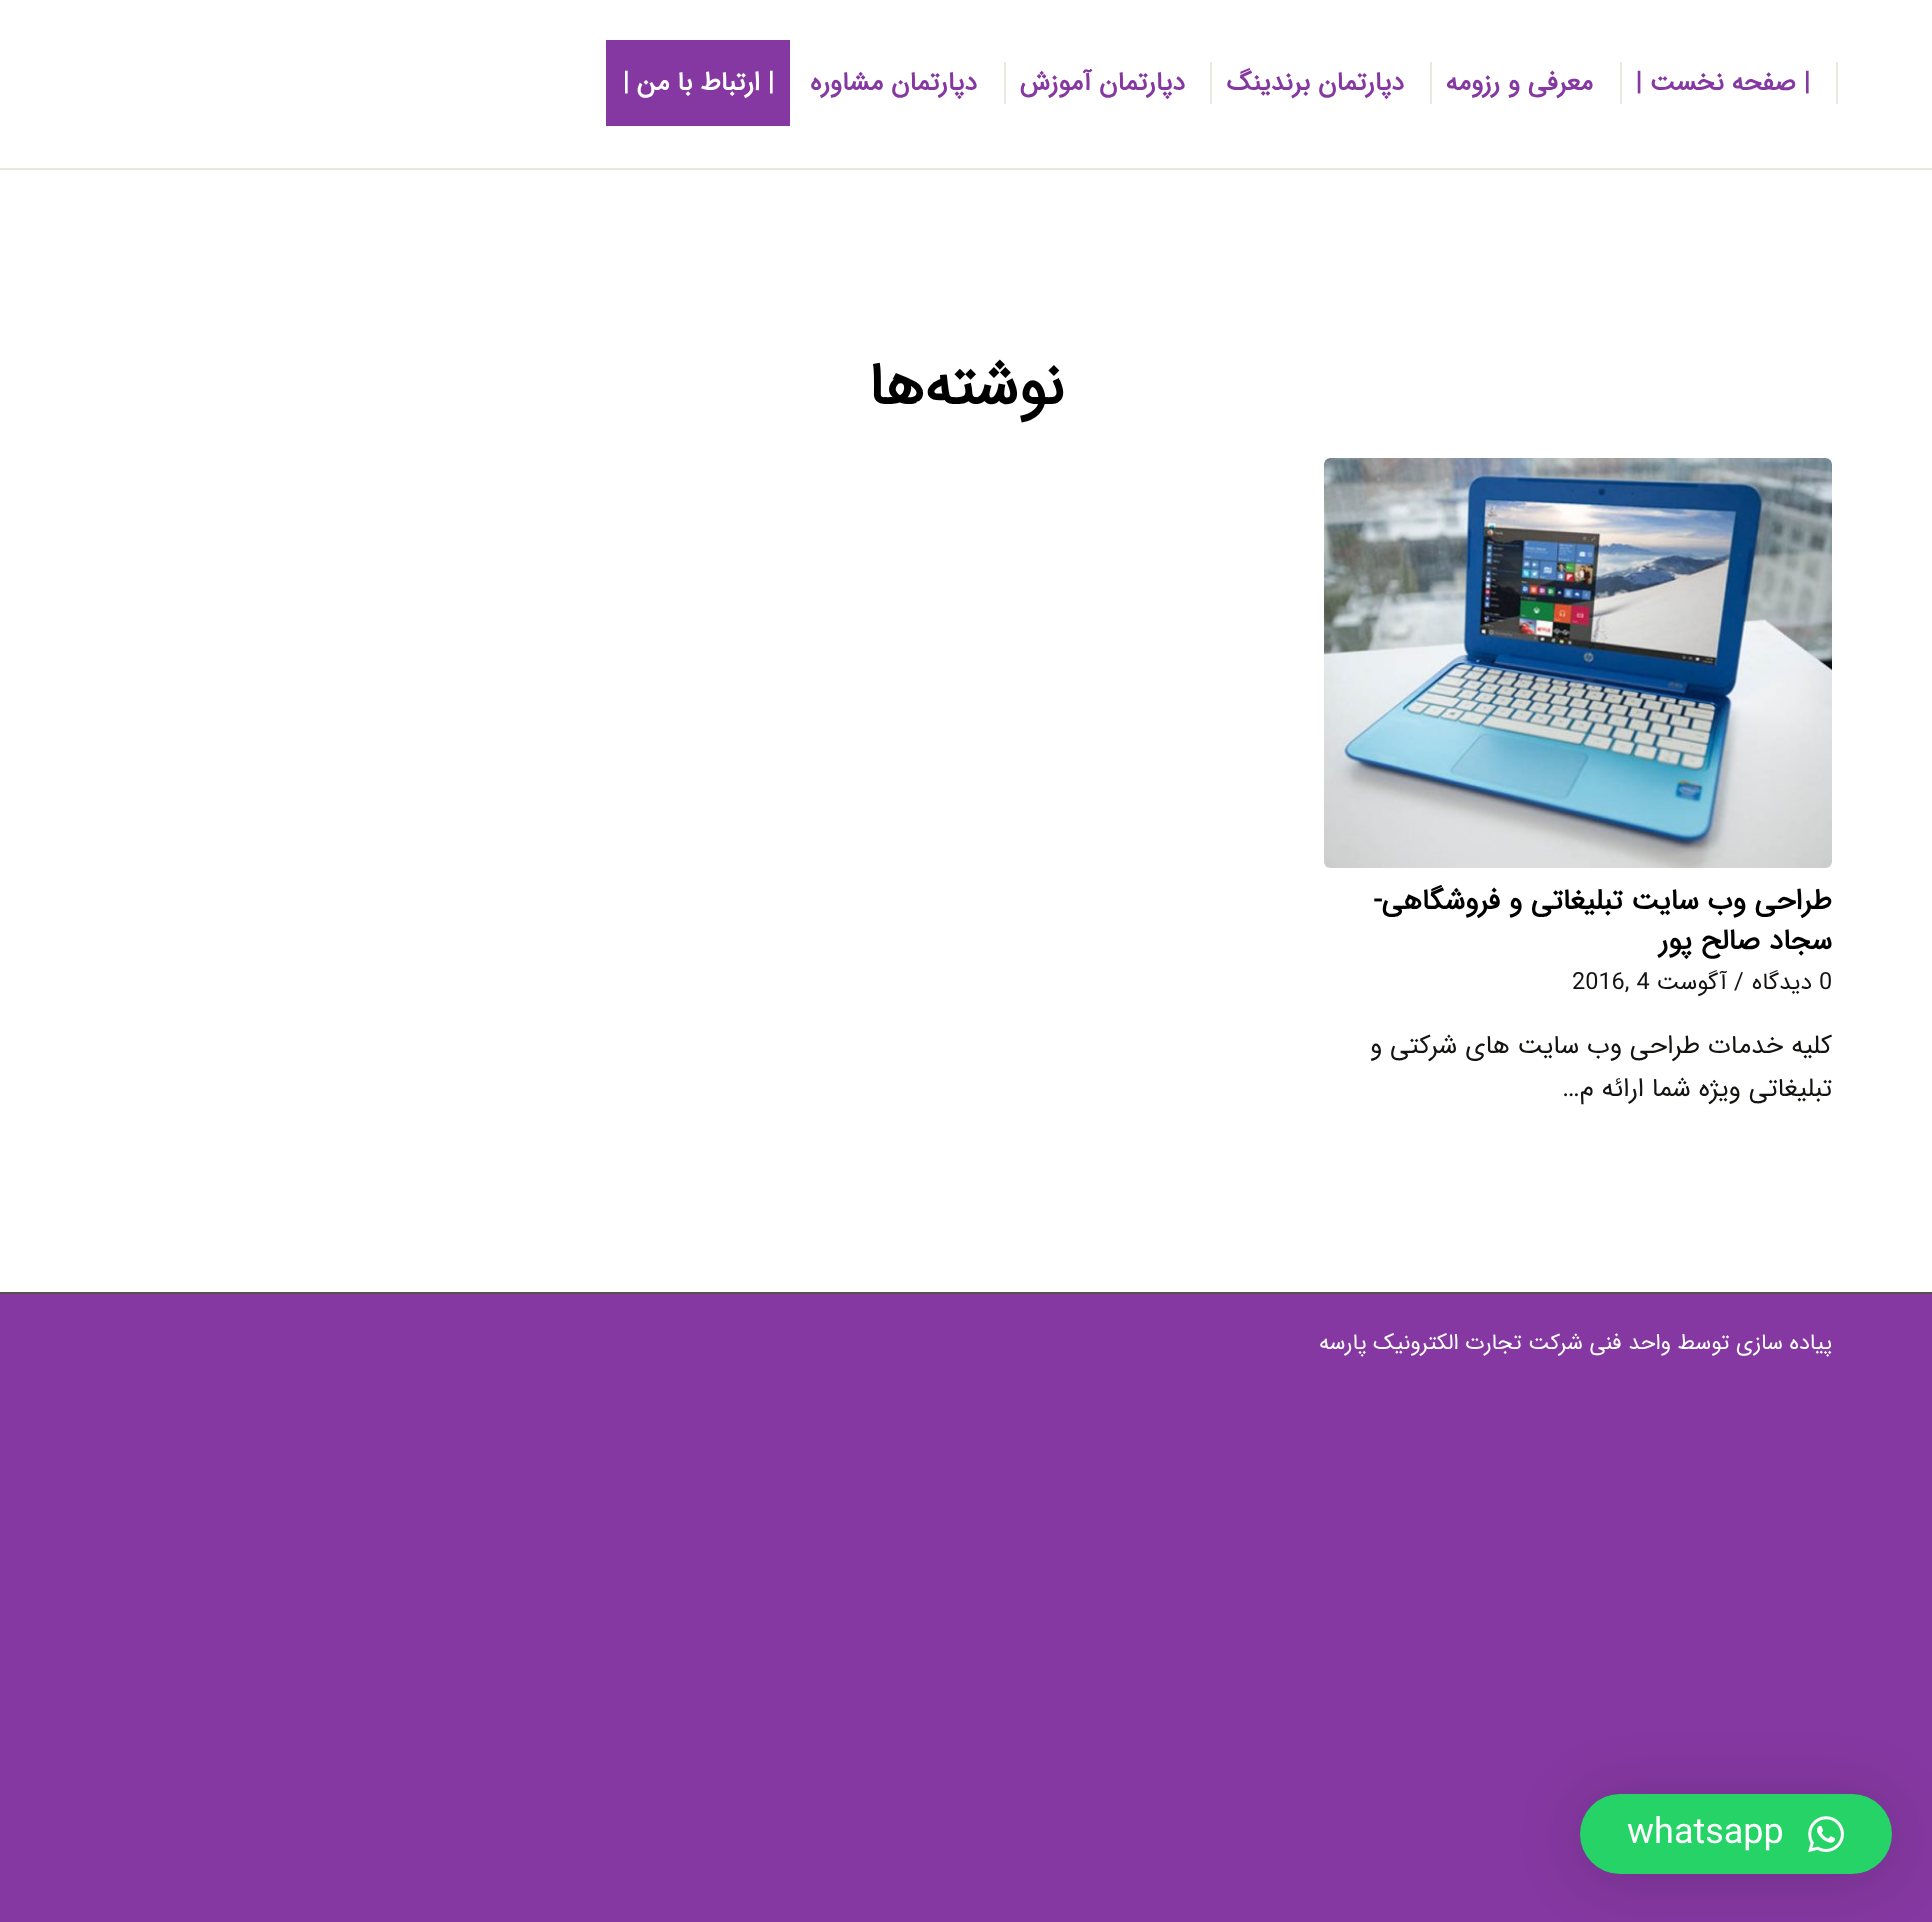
<!DOCTYPE html>
<meta charset="utf-8">
<style>body { margin: 0 } canvas { display: block }</style>
<canvas id="canvas" width="1932" height="1922"></canvas>
<img id="img1" src="images/1.png" hidden>
<img id="img2" src="images/2.png" hidden>
<script>
window.onload = function () {
    const canvas = document.getElementById('canvas');
    const context = canvas.getContext('2d');
    context.miterLimit = 4;
    context.fontKerning = 'normal';

    context.fillStyle = 'rgb(133, 56, 161)';
    context.fillRect(0, 0, 1932, 1922);
    context.fillStyle = 'rgb(255, 255, 255)';
    context.fillRect(0, 0, 1932, 168);
    context.fillStyle = 'rgb(235, 232, 226)';
    context.fillRect(0, 168, 1932, 2);
    context.fillRect(1836, 62, 2, 42);
    context.fillRect(1620, 62, 2, 42);
    context.fillRect(1430, 62, 2, 42);
    context.fillRect(1210, 62, 2, 42);
    context.fillRect(1004, 62, 2, 42);
    context.fillStyle = 'rgb(133, 56, 161)';
    context.fillRect(606, 40, 184, 86);
    context.fillStyle = 'rgb(255, 255, 255)';
    context.fillRect(0, 170, 1932, 1122);
    context.fillStyle = 'rgb(248, 246, 242)';
    context.beginPath();
    context.roundRect(1324, 458, 508, 410, 6);
    context.fill();
    context.drawImage(document.getElementById('img1'), 1324, 458, 508, 410);
    context.fillStyle = 'rgb(87, 81, 73)';
    context.fillRect(0, 1292, 1932, 2);
    context.fillStyle = 'rgba(0, 0, 0, 0.16)';
    context.filter = 'blur(32px)';
    context.beginPath();
    context.roundRect(1580, 1798, 312, 80, 40);
    context.fill();
    context.filter = 'none';
    context.fillStyle = 'rgb(37, 211, 102)';
    context.beginPath();
    context.roundRect(1580, 1794, 312, 80, 40);
    context.fill();
    context.drawImage(document.getElementById('img2'), 1808, 1816, 36, 37);
    context.direction = 'rtl';
    context.font = 'bold 26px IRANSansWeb';
    context.fillStyle = 'rgb(133, 56, 161)';
    context.fillText('| صفحه نخست |', 1810, 90);
    context.fillText('معرفی و رزومه', 1593, 90);
    context.fillText('دپارتمان برندینگ', 1404, 90);
    context.fillText('دپارتمان آموزش', 1185, 90);
    context.fillText('دپارتمان مشاوره', 977, 90);
    context.fillStyle = 'rgb(255, 255, 255)';
    context.fillText('| ارتباط با من |', 774, 90);
    context.font = 'bold 60px IRANSansWeb';
    context.fillStyle = 'rgb(0, 0, 0)';
    context.fillText('نوشته‌ها', 1064, 404);
    context.font = 'bold 28.6px IRANSansWeb';
    context.fillText('طراحی وب سایت تبلیغاتی و فروشگاهی-', 1832, 909);
    context.fillText('سجاد صالح پور', 1832, 949);
    context.direction = 'ltr';
    context.font = '23.5px IRANSansWeb';
    context.fillStyle = 'rgb(20, 19, 17)';
    context.fillText('0', 1819, 989);
    context.direction = 'rtl';
    context.fillText('دیدگاه', 1812, 989);
    context.direction = 'ltr';
    context.fillText('/', 1734, 989);
    context.direction = 'rtl';
    context.fillText('آگوست', 1727, 989);
    context.direction = 'ltr';
    context.fillText('2016, 4', 1572, 989);
    context.direction = 'rtl';
    context.font = '26px IRANSansWeb';
    context.fillText('کلیه خدمات طراحی وب سایت های شرکتی و', 1832, 1053);
    context.fillText('تبلیغاتی ویژه شما ارائه م…', 1832, 1096);
    context.font = '22px IRANSansWeb';
    context.fillStyle = 'rgb(255, 255, 255)';
    context.fillText('پیاده سازی توسط واحد فنی شرکت تجارت الکترونیک پارسه', 1832, 1349);
    context.direction = 'ltr';
    context.font = '36px IRANSansWeb';
    context.fillText('whatsapp', 1627, 1843);
};
</script>
